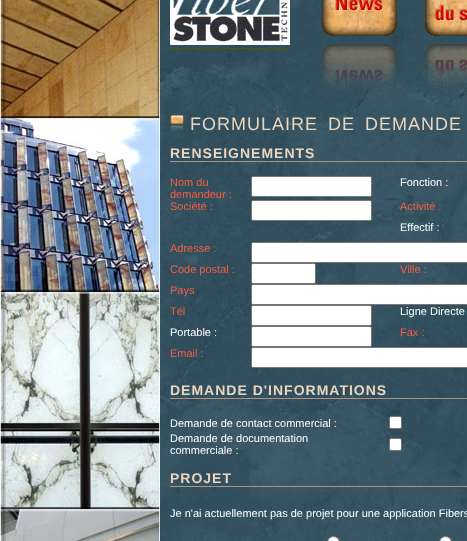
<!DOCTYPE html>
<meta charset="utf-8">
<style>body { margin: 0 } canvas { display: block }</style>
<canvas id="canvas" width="467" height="541"></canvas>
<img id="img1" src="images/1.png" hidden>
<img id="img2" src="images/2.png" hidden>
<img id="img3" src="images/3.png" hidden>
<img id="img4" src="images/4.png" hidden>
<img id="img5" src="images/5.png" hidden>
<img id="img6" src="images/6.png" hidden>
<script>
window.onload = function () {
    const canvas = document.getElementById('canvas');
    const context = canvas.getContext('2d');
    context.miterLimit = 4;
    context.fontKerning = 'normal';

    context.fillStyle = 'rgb(255, 255, 255)';
    context.fillRect(0, 0, 467, 541);
    context.drawImage(document.getElementById('img1'), 160, 0, 307, 541);
    context.drawImage(document.getElementById('img2'), 0, 0, 160, 541);
    context.drawImage(document.getElementById('img3'), 170, 0, 120, 45);
    context.fillStyle = 'rgb(85, 85, 0)';
    context.fillRect(170, 48, 120, 1);
    context.drawImage(document.getElementById('img4'), 322, 0, 75, 97);
    context.drawImage(document.getElementById('img5'), 425, 0, 42, 96);
    context.drawImage(document.getElementById('img6'), 170, 114, 14, 18);
    context.fillStyle = 'rgb(177, 147, 132)';
    context.fillRect(170, 161, 297, 1);
    context.fillStyle = 'rgb(255, 255, 255)';
    context.beginPath();
    context.roundRect(251.5, 176.5, 120, 20, 1.5);
    context.fill();
    context.strokeStyle = 'rgb(118, 118, 118)';
    context.stroke();
    context.beginPath();
    context.roundRect(251.5, 200.5, 120, 20, 1.5);
    context.fill();
    context.stroke();
    context.beginPath();
    context.roundRect(251.5, 242.5, 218, 20, 1.5);
    context.fill();
    context.stroke();
    context.beginPath();
    context.roundRect(251.5, 263.5, 64, 20, 1.5);
    context.fill();
    context.stroke();
    context.beginPath();
    context.roundRect(251.5, 284.5, 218, 20, 1.5);
    context.fill();
    context.stroke();
    context.beginPath();
    context.roundRect(251.5, 305.5, 120, 20, 1.5);
    context.fill();
    context.stroke();
    context.beginPath();
    context.roundRect(251.5, 326.5, 120, 20, 1.5);
    context.fill();
    context.stroke();
    context.beginPath();
    context.roundRect(251.5, 347.5, 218, 20, 1.5);
    context.fill();
    context.stroke();
    context.fillStyle = 'rgb(177, 147, 132)';
    context.fillRect(170, 398, 297, 1);
    context.fillStyle = 'rgb(255, 255, 255)';
    context.beginPath();
    context.roundRect(389.5, 416.5, 12, 12, 1.5);
    context.fill();
    context.stroke();
    context.beginPath();
    context.roundRect(389.5, 438.5, 12, 12, 1.5);
    context.fill();
    context.stroke();
    context.fillStyle = 'rgb(177, 147, 132)';
    context.fillRect(170, 486, 297, 1);
    context.fillStyle = 'rgb(255, 255, 255)';
    context.beginPath();
    context.arc(333.5, 542.5, 6, 0, 2 * Math.PI);
    context.fill();
    context.stroke();
    context.beginPath();
    context.arc(445.5, 542.5, 6, 0, 2 * Math.PI);
    context.fill();
    context.stroke();
    context.letterSpacing = '1px';
    context.wordSpacing = '4px';
    context.font = '18px Liberation Sans';
    context.fillStyle = 'rgb(234, 213, 190)';
    context.fillText('FORMULAIRE DE DEMANDE', 190, 130);
    context.wordSpacing = '0px';
    context.font = 'bold 14px Liberation Sans';
    context.fillText('RENSEIGNEMENTS', 170, 158);
    context.letterSpacing = '0px';
    context.font = '11px Liberation Sans';
    context.fillStyle = 'rgb(247, 94, 66)';
    context.fillText('Nom du', 170, 186);
    context.fillText('demandeur :', 170, 198);
    context.fillStyle = 'rgb(255, 255, 255)';
    context.fillText('Fonction :', 400, 186);
    context.fillStyle = 'rgb(247, 94, 66)';
    context.fillText('Société :', 170, 210);
    context.fillText('Activité :', 400, 210);
    context.fillStyle = 'rgb(255, 255, 255)';
    context.fillText('Effectif :', 400, 231);
    context.fillStyle = 'rgb(247, 94, 66)';
    context.fillText('Adresse :', 170, 252);
    context.fillText('Code postal :', 170, 273);
    context.fillText('Ville :', 400, 273);
    context.fillText('Pays', 170, 294);
    context.fillText('Tél', 170, 315);
    context.fillStyle = 'rgb(255, 255, 255)';
    context.fillText('Ligne Directe', 400, 315);
    context.fillText('Portable :', 170, 336);
    context.fillStyle = 'rgb(247, 94, 66)';
    context.fillText('Fax :', 400, 336);
    context.fillText('Email :', 170, 357);
    context.letterSpacing = '1px';
    context.font = 'bold 14px Liberation Sans';
    context.fillStyle = 'rgb(234, 213, 190)';
    context.fillText('DEMANDE D\'INFORMATIONS', 170, 395);
    context.letterSpacing = '0px';
    context.font = '11px Liberation Sans';
    context.fillStyle = 'rgb(255, 255, 255)';
    context.fillText('Demande de contact commercial :', 170, 427);
    context.fillText('Demande de documentation', 170, 442);
    context.fillText('commerciale :', 170, 454);
    context.letterSpacing = '1px';
    context.font = 'bold 14px Liberation Sans';
    context.fillStyle = 'rgb(234, 213, 190)';
    context.fillText('PROJET', 170, 483);
    context.letterSpacing = '0px';
    context.font = '11px Liberation Sans';
    context.fillStyle = 'rgb(255, 255, 255)';
    context.fillText('Je n\'ai actuellement pas de projet pour une application Fibers', 170, 517);
};
</script>
